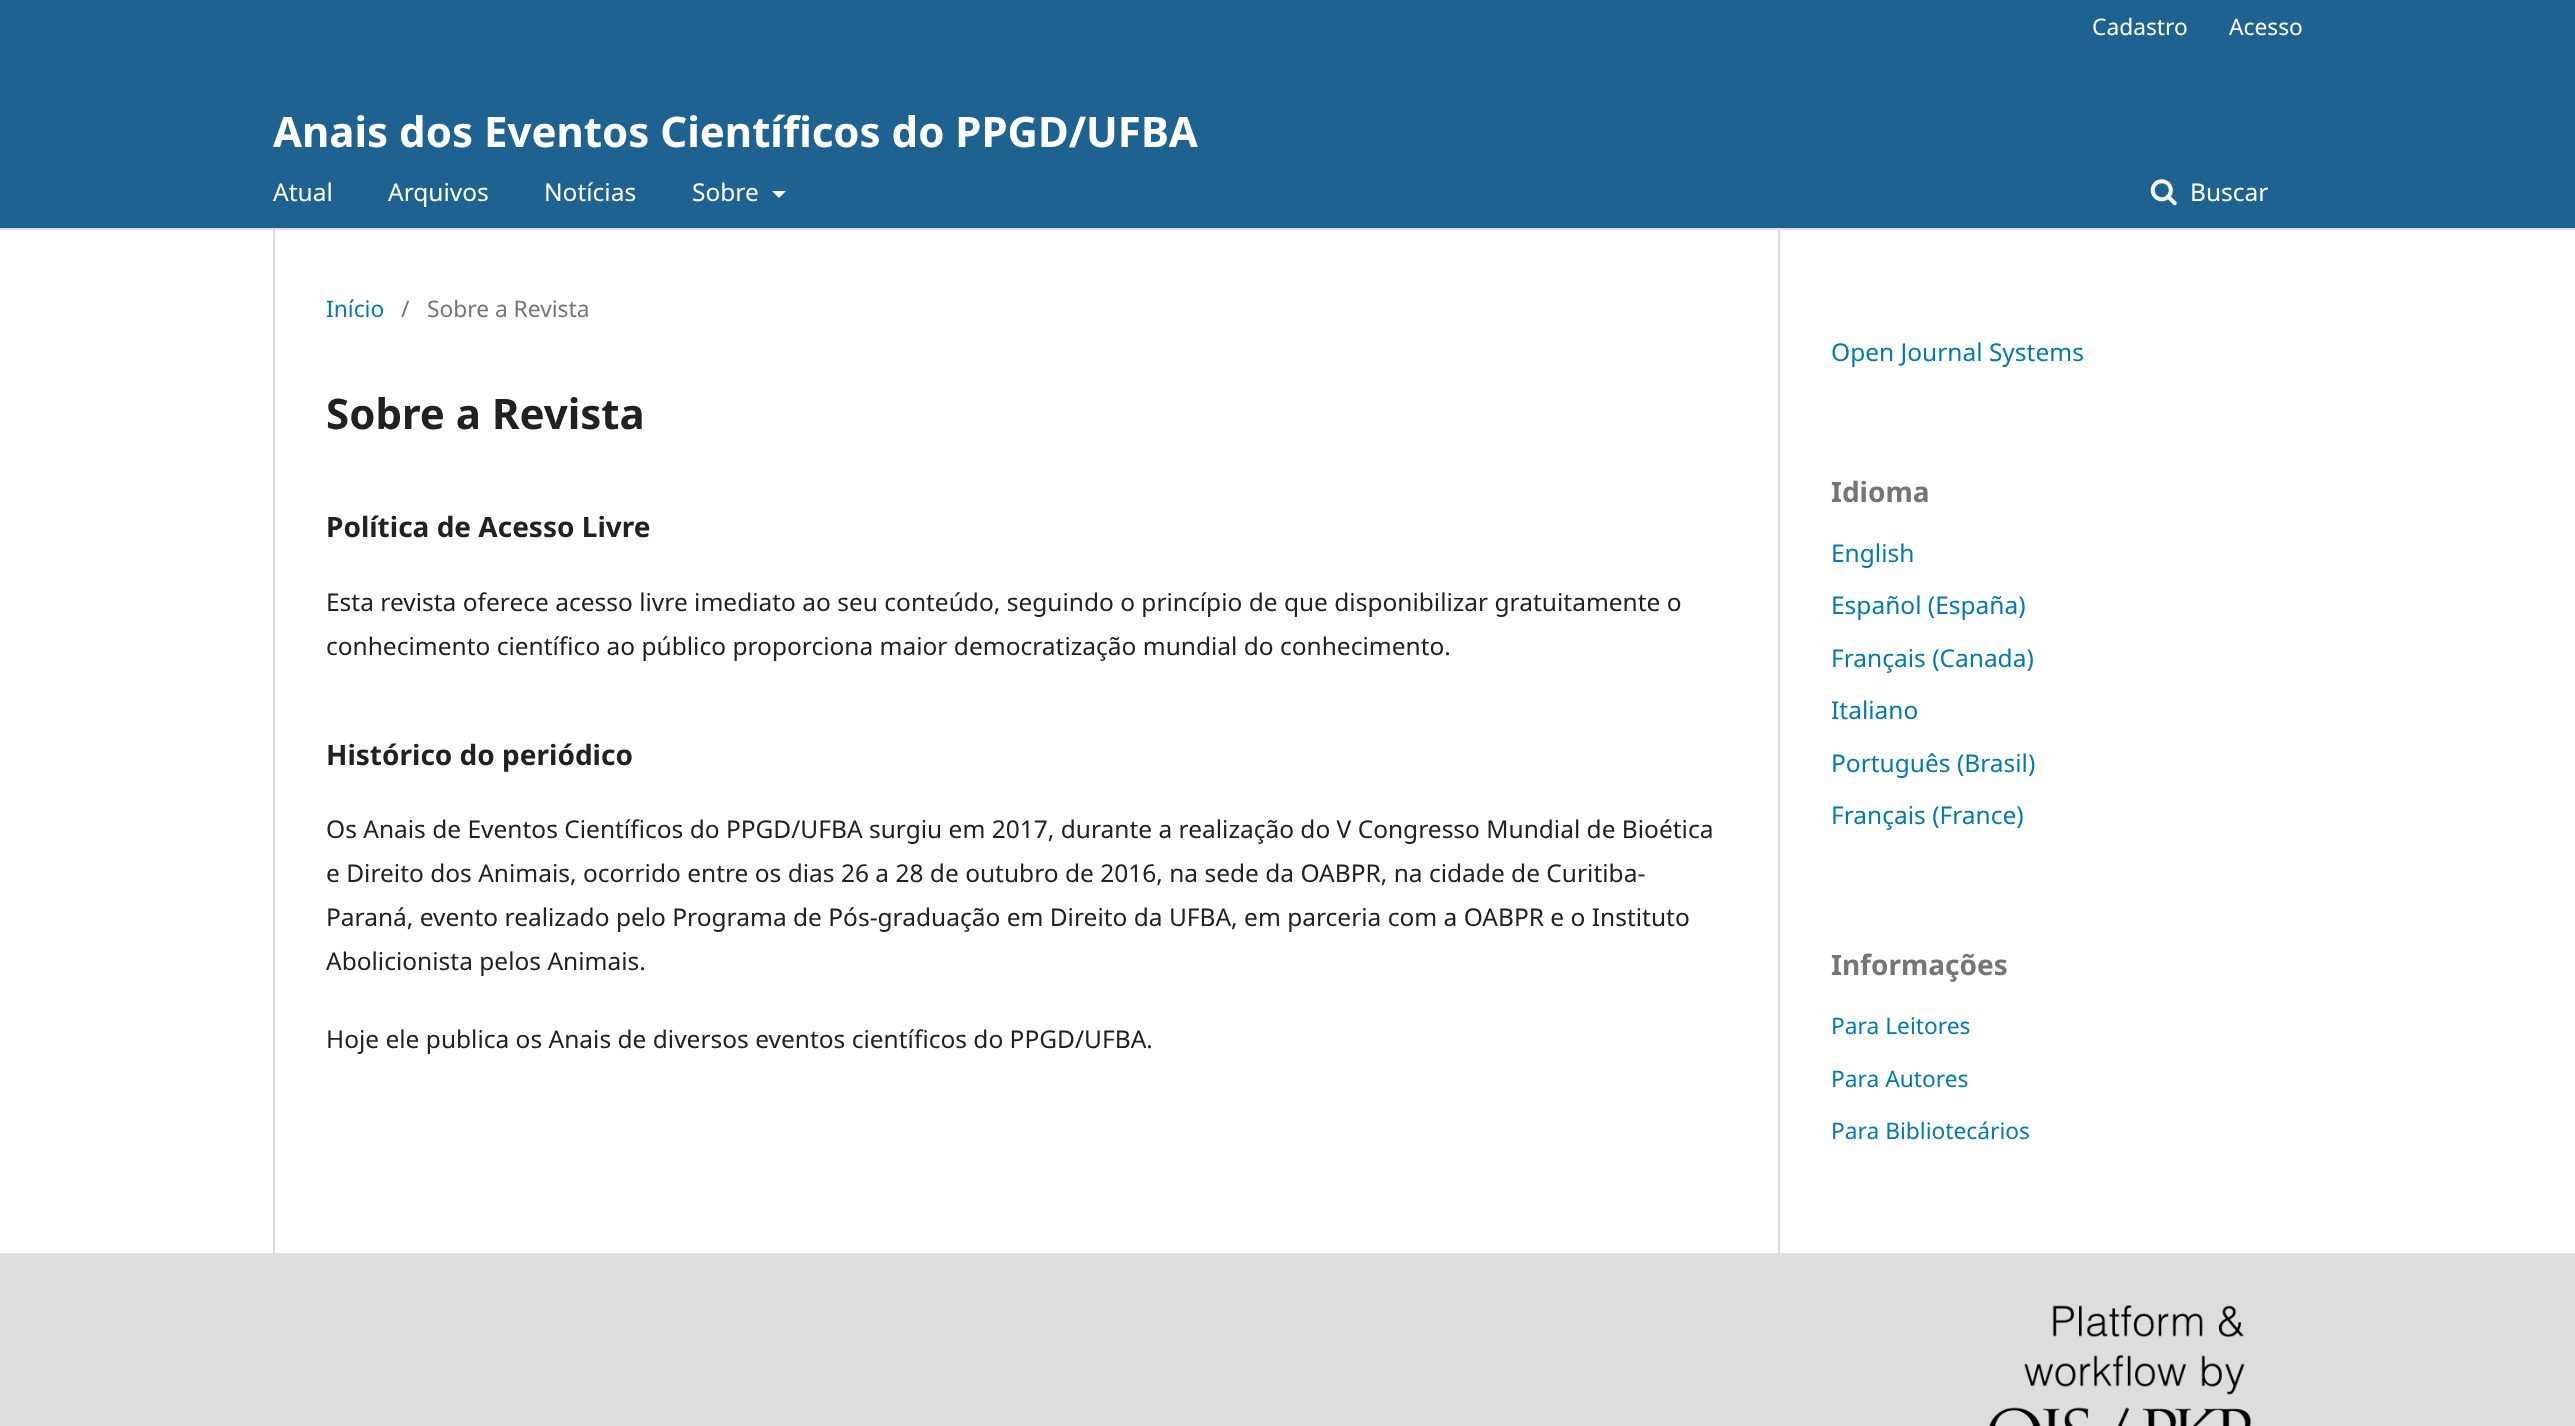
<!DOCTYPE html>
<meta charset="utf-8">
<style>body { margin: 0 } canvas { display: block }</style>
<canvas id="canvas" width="2575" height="1426"></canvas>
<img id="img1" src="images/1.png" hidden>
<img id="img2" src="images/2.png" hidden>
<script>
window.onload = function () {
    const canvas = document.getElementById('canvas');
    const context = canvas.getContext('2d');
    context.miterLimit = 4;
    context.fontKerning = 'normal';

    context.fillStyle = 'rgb(255, 255, 255)';
    context.fillRect(0, 0, 2575, 1426);
    context.fillStyle = 'rgb(30, 98, 146)';
    context.fillRect(0, 0, 2575, 228);
    context.fillStyle = 'rgb(221, 221, 221)';
    context.fillRect(0, 228, 2575, 2);
    context.fillStyle = 'rgb(255, 255, 255)';
    context.beginPath();
    context.moveTo(772, 191);
    context.lineTo(786, 191);
    context.lineTo(779, 198);
    context.closePath();
    context.fill();
    context.drawImage(document.getElementById('img1'), 2150, 179, 27, 27);
    context.fillStyle = 'rgb(221, 221, 221)';
    context.fillRect(273, 229, 2, 1024);
    context.fillRect(1778, 229, 2, 1024);
    context.fillRect(0, 1253, 2575, 173);
    context.drawImage(document.getElementById('img2'), 1989, 1305, 262, 121);
    context.font = '22.75px Noto Sans';
    context.fillStyle = 'rgb(255, 255, 255)';
    context.fillText('Cadastro', 2092, 35);
    context.fillText('Acesso', 2229, 35);
    context.font = '24.5px Noto Sans';
    context.fillText('Atual', 273, 201);
    context.fillText('Arquivos', 388, 201);
    context.fillText('Notícias', 544, 201);
    context.fillText('Sobre', 692, 201);
    context.fillText('Buscar', 2190, 201);
    context.font = 'bold 42px Noto Sans';
    context.fillText('Anais dos Eventos Científicos do PPGD/UFBA', 273, 147);
    context.font = '22.75px Noto Sans';
    context.fillStyle = 'rgb(0, 122, 178)';
    context.fillText('Início', 326, 317);
    context.fillStyle = 'rgb(117, 117, 117)';
    context.fillText('/', 401, 317);
    context.fillText('Sobre a Revista', 427, 317);
    context.font = 'bold 42px Noto Sans';
    context.fillStyle = 'rgb(33, 33, 33)';
    context.fillText('Sobre a Revista', 326, 429);
    context.font = 'bold 28px Noto Sans';
    context.fillText('Política de Acesso Livre', 326, 537);
    context.font = '24.5px Noto Sans';
    context.fillText('Esta revista oferece acesso livre imediato ao seu conteúdo, seguindo o princípio de que disponibilizar gratuitamente o', 326, 611);
    context.fillText('conhecimento científico ao público proporciona maior democratização mundial do conhecimento.', 326, 655);
    context.font = 'bold 28px Noto Sans';
    context.fillText('Histórico do periódico', 326, 765);
    context.font = '24.5px Noto Sans';
    context.fillText('Os Anais de Eventos Científicos do PPGD/UFBA surgiu em 2017, durante a realização do V Congresso Mundial de Bioética', 326, 838);
    context.fillText('e Direito dos Animais, ocorrido entre os dias 26 a 28 de outubro de 2016, na sede da OABPR, na cidade de Curitiba-', 326, 882);
    context.fillText('Paraná, evento realizado pelo Programa de Pós-graduação em Direito da UFBA, em parceria com a OABPR e o Instituto', 326, 926);
    context.fillText('Abolicionista pelos Animais.', 326, 970);
    context.fillText('Hoje ele publica os Anais de diversos eventos científicos do PPGD/UFBA.', 326, 1048);
    context.fillStyle = 'rgb(0, 122, 178)';
    context.fillText('Open Journal Systems', 1831, 361);
    context.font = 'bold 28px Noto Sans';
    context.fillStyle = 'rgb(117, 117, 117)';
    context.fillText('Idioma', 1831, 502);
    context.font = '24.5px Noto Sans';
    context.fillStyle = 'rgb(0, 122, 178)';
    context.fillText('English', 1831, 562);
    context.fillText('Español (España)', 1831, 614);
    context.fillText('Français (Canada)', 1831, 667);
    context.fillText('Italiano', 1831, 719);
    context.fillText('Português (Brasil)', 1831, 772);
    context.fillText('Français (France)', 1831, 824);
    context.font = 'bold 28px Noto Sans';
    context.fillStyle = 'rgb(117, 117, 117)';
    context.fillText('Informações', 1831, 975);
    context.font = '22.75px Noto Sans';
    context.fillStyle = 'rgb(0, 122, 178)';
    context.fillText('Para Leitores', 1831, 1034);
    context.fillText('Para Autores', 1831, 1087);
    context.fillText('Para Bibliotecários', 1831, 1139);
};
</script>
